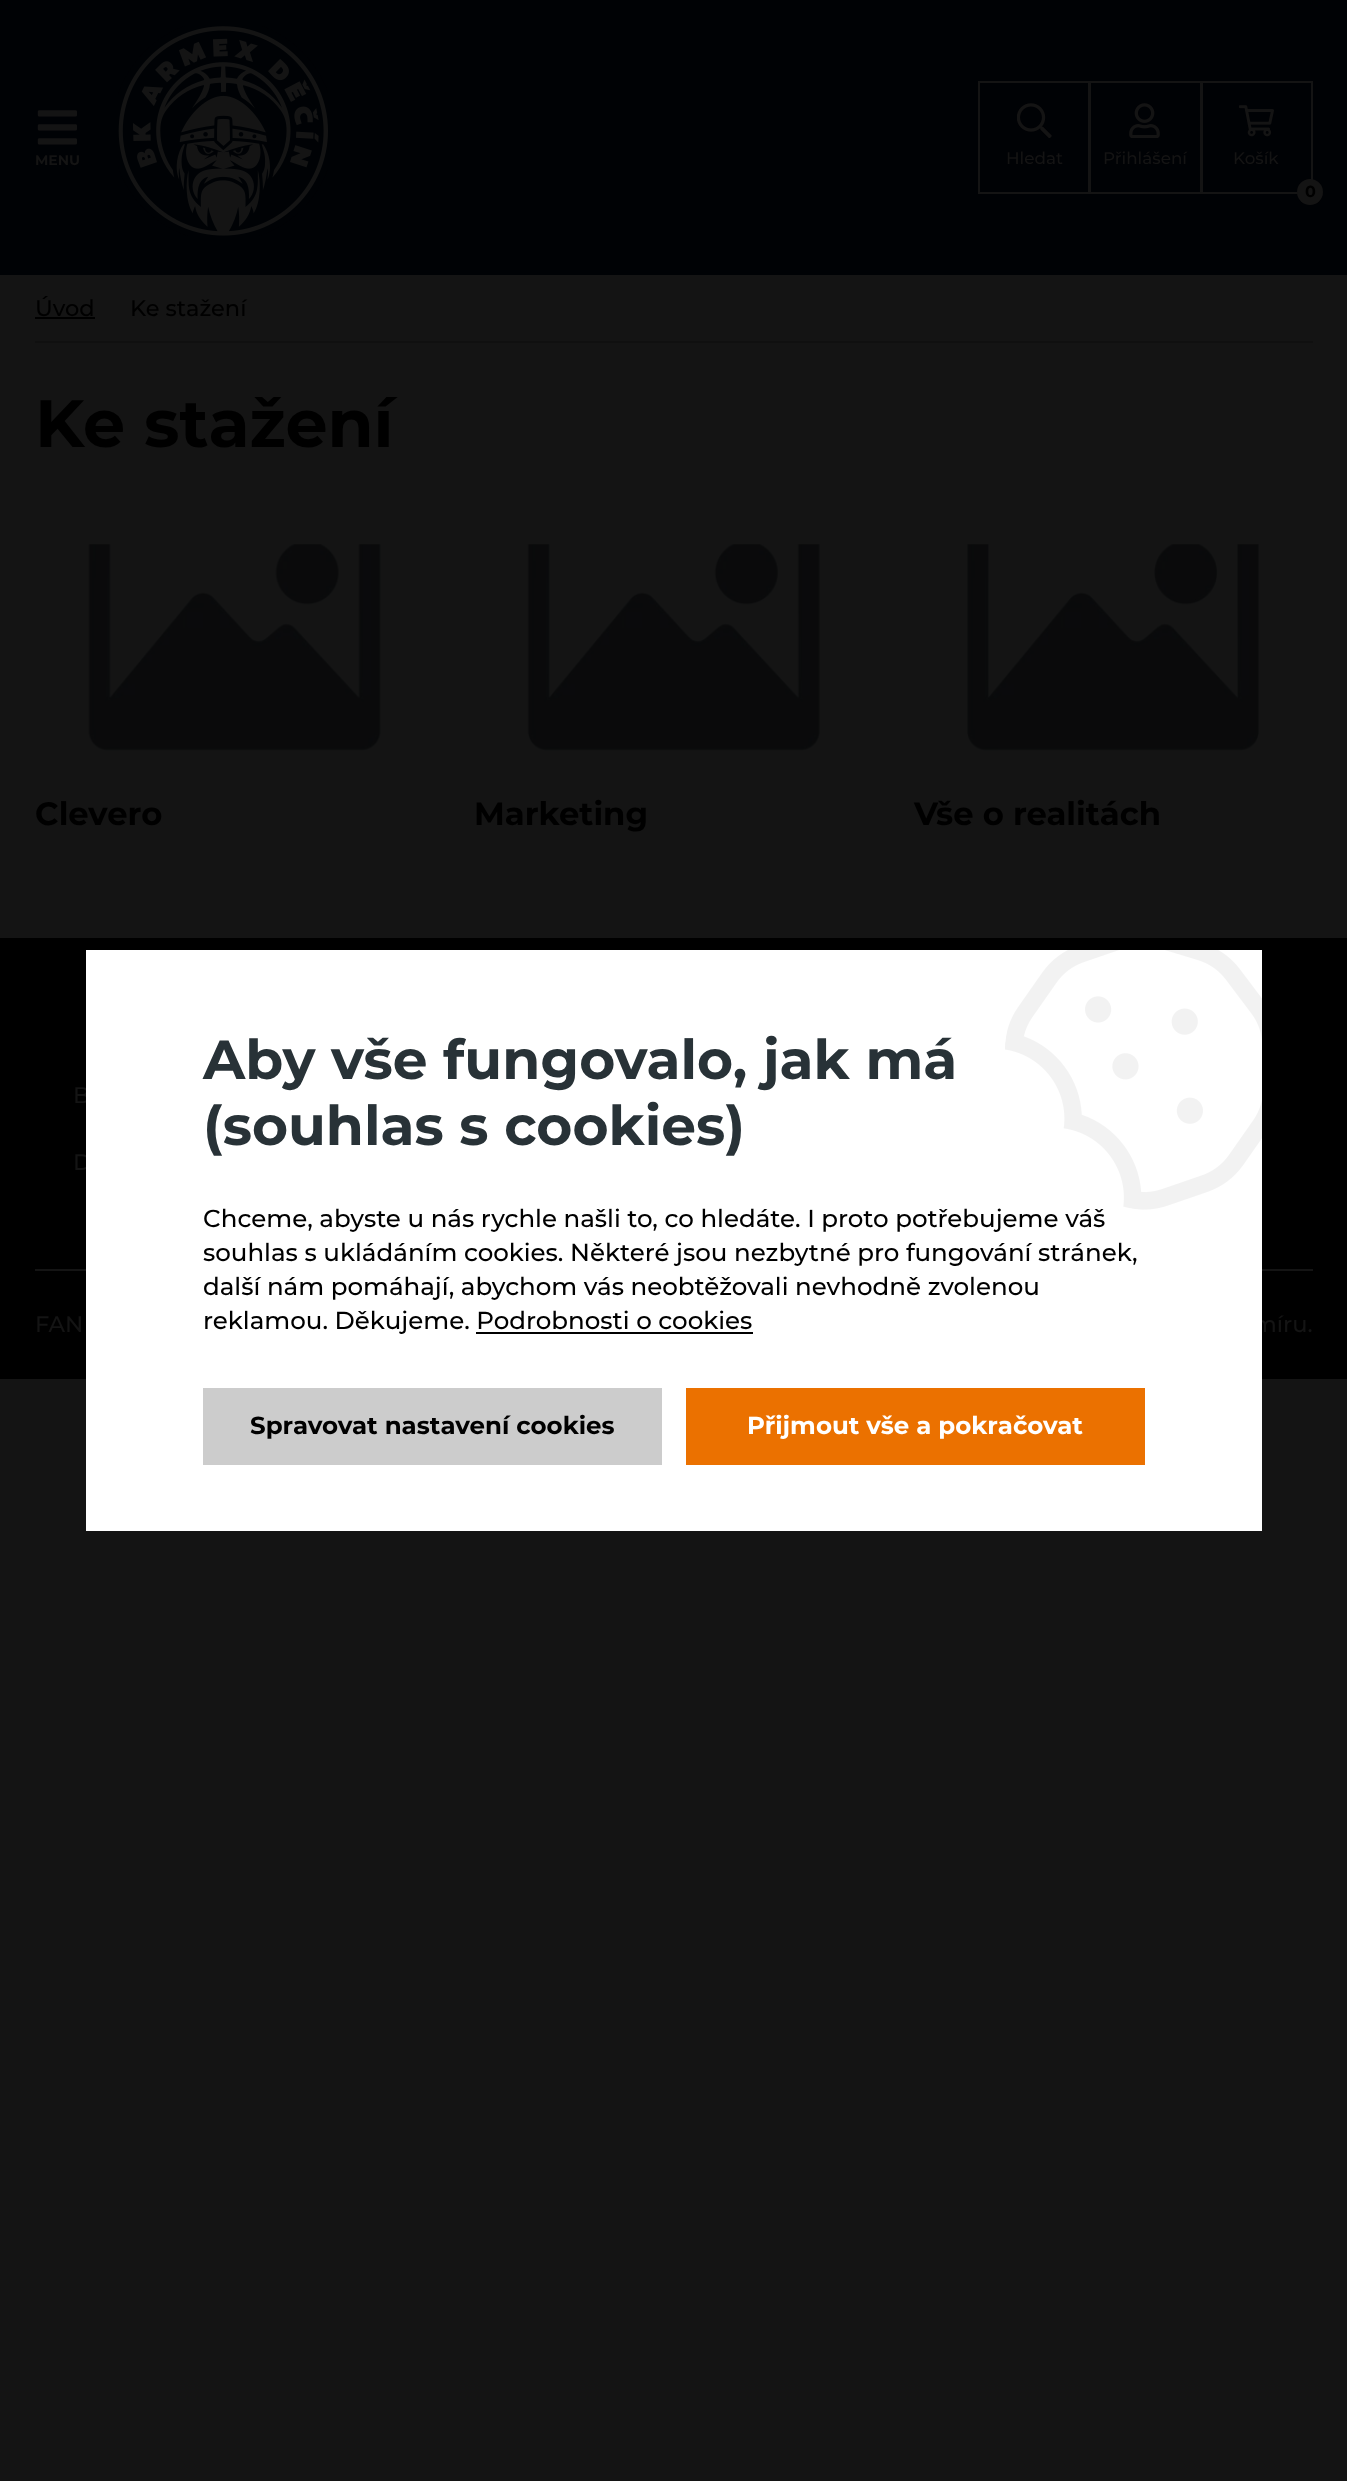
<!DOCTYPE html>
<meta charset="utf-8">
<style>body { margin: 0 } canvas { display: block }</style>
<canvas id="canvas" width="1347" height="2481"></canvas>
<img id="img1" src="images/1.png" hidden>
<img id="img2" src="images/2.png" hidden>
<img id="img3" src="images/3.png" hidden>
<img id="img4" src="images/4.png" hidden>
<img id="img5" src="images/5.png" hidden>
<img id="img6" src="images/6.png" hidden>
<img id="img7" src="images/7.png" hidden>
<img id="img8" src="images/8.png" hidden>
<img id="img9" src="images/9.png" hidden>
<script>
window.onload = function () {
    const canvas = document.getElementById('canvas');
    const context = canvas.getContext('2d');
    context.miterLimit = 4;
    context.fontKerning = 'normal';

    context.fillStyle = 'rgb(20, 20, 20)';
    context.fillRect(0, 0, 1347, 2481);
    context.fillStyle = 'rgb(0, 2, 5)';
    context.fillRect(0, 0, 1347, 275);
    context.drawImage(document.getElementById('img1'), 37, 110, 40, 35);
    context.drawImage(document.getElementById('img2'), 118, 26, 210, 210);
    context.strokeStyle = 'rgb(20, 20, 20)';
    context.lineWidth = 2;
    context.strokeRect(979, 82, 110, 111);
    context.drawImage(document.getElementById('img3'), 1017, 103, 35, 35);
    context.strokeRect(1090, 82, 111, 111);
    context.drawImage(document.getElementById('img4'), 1129, 103, 31, 35);
    context.strokeRect(1202, 82, 110, 111);
    context.drawImage(document.getElementById('img5'), 1239, 105, 35, 32);
    context.fillStyle = 'rgb(20, 20, 20)';
    context.beginPath();
    context.arc(1310, 192, 13, 0, 2 * Math.PI);
    context.fill();
    context.fillStyle = 'rgb(16, 16, 16)';
    context.fillRect(35, 341, 1278, 2);
    context.fillStyle = 'rgb(0, 0, 0)';
    context.fillRect(35, 317, 60, 2);
    context.drawImage(document.getElementById('img6'), 88, 544, 296, 207);
    context.drawImage(document.getElementById('img7'), 527, 544, 296, 207);
    context.drawImage(document.getElementById('img8'), 966, 544, 296, 207);
    context.fillRect(0, 938, 1347, 441);
    context.fillStyle = 'rgb(20, 20, 20)';
    context.fillRect(35, 1269, 1278, 2);
    context.font = 'bold 14px Montserrat';
    context.fillText('MENU', 35, 165);
    context.font = '500 16.75px Montserrat';
    context.fillText('Hledat', 1006, 164);
    context.fillText('Přihlášení', 1103, 164);
    context.fillText('Košík', 1233, 164);
    context.font = 'bold 16px Montserrat';
    context.fillStyle = 'rgb(0, 0, 0)';
    context.fillText('0', 1305, 197);
    context.font = '500 22.5px Montserrat';
    context.fillText('Úvod', 35, 316);
    context.fillText('Ke stažení', 130, 316);
    context.font = 'bold 66.75px Montserrat';
    context.fillText('Ke stažení', 35, 447);
    context.font = 'bold 32.25px Montserrat';
    context.fillText('Clevero', 35, 825);
    context.fillText('Marketing', 474, 825);
    context.fillText('Vše o realitách', 914, 825);
    context.font = '500 22.5px Montserrat';
    context.fillStyle = 'rgb(20, 20, 20)';
    context.fillText('B', 73, 1103);
    context.fillText('D', 73, 1170);
    context.fillText('FAN', 35, 1332);
    context.fillText('míru.', 1253, 1332);
    context.fillStyle = 'rgb(255, 255, 255)';
    context.fillRect(86, 950, 1176, 581);
    context.fillStyle = 'rgb(235, 113, 0)';
    context.fillRect(686, 1388, 459, 77);
    context.font = 'bold 24.5px Montserrat';
    context.fillStyle = 'rgb(255, 255, 255)';
    context.fillText('Přijmout vše a pokračovat', 747, 1434);
    context.fillStyle = 'rgb(204, 204, 204)';
    context.fillRect(203, 1388, 459, 77);
    context.fillStyle = 'rgb(0, 0, 0)';
    context.fillText('Spravovat nastavení cookies', 250, 1434);
    context.fillRect(476, 1332, 277, 2);
    context.font = '500 24.5px Montserrat';
    context.fillText('reklamou. Děkujeme. Podrobnosti o cookies', 203, 1329);
    context.fillText('další nám pomáhají, abychom vás neobtěžovali nevhodně zvolenou', 203, 1295);
    context.fillText('souhlas s ukládáním cookies. Některé jsou nezbytné pro fungování stránek,', 203, 1261);
    context.drawImage(document.getElementById('img9'), 1005, 950, 257, 260);
    context.fillText('Chceme, abyste u nás rychle našli to, co hledáte. I proto potřebujeme váš', 203, 1227);
    context.font = 'bold 55.1px Montserrat';
    context.fillStyle = 'rgb(40, 50, 55)';
    context.fillText('(souhlas s cookies)', 203, 1145);
    context.fillText('Aby vše fungovalo, jak má', 203, 1079);
};
</script>
